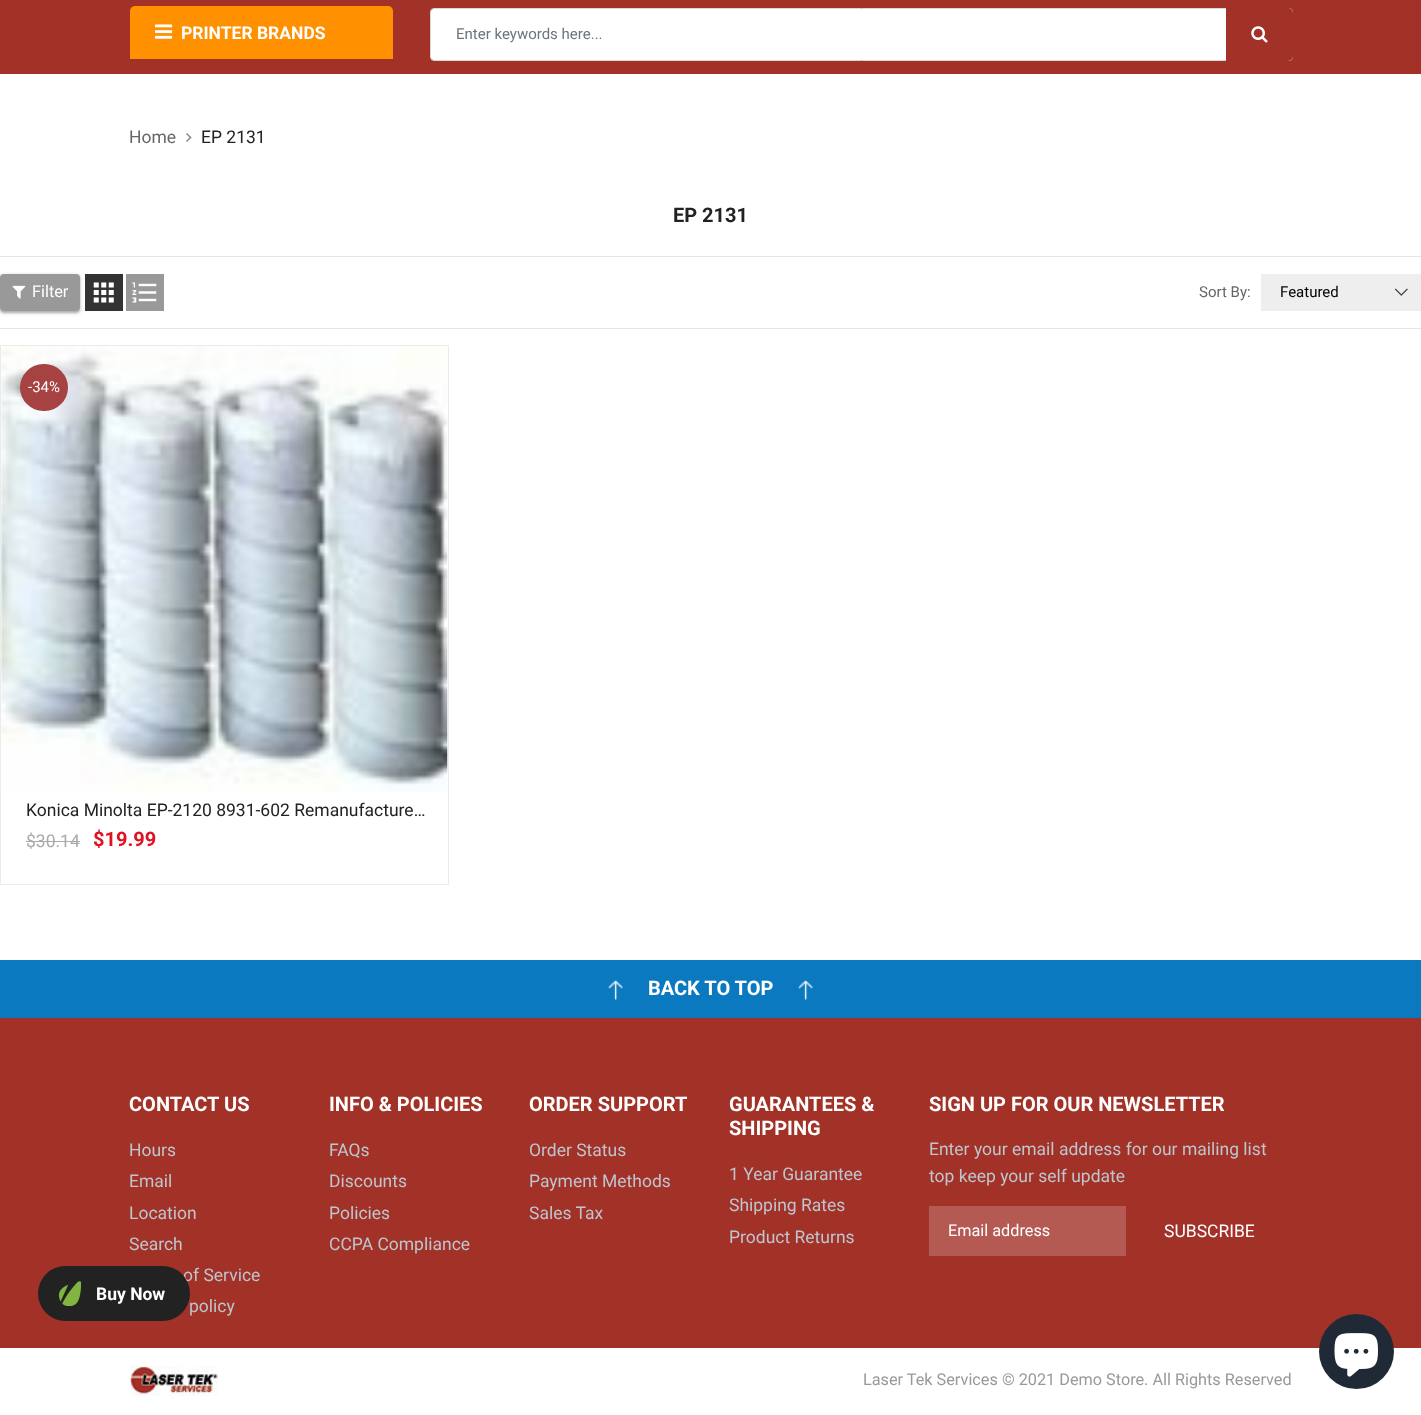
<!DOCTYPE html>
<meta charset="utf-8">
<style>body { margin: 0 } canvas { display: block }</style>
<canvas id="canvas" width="1421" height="1415"></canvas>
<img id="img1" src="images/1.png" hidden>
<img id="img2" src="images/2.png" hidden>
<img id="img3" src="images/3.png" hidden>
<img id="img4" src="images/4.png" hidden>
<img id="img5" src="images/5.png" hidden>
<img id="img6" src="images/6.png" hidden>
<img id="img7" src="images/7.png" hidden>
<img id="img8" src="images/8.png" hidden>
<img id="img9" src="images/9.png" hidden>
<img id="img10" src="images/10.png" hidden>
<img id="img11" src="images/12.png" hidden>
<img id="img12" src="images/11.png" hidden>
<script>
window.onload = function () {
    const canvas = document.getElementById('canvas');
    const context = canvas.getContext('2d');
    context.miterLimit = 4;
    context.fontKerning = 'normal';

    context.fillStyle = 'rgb(255, 255, 255)';
    context.fillRect(0, 0, 1421, 1415);
    context.fillStyle = 'rgb(162, 49, 40)';
    context.fillRect(0, 0, 1421, 74);
    context.fillStyle = 'rgb(255, 144, 0)';
    context.beginPath();
    context.roundRect(130, 6, 263, 53, [5, 5, 0, 0]);
    context.fill();
    context.drawImage(document.getElementById('img1'), 155, 24, 18, 15);
    context.fillStyle = 'rgb(255, 255, 255)';
    context.beginPath();
    context.roundRect(431, 9, 860, 51, 2.5);
    context.fill();
    context.beginPath();
    context.roundRect(430.5, 8.5, 862, 52, 3.5);
    context.strokeStyle = 'rgb(216, 216, 216)';
    context.stroke();
    context.fillStyle = 'rgb(162, 49, 40)';
    context.beginPath();
    context.roundRect(1226, 8, 67, 53, [0, 5, 5, 0]);
    context.fill();
    context.drawImage(document.getElementById('img2'), 1251, 26, 17, 17);
    context.fillStyle = 'rgb(136, 136, 136)';
    context.beginPath();
    context.moveTo(187, 133);
    context.lineTo(191.5, 137.5);
    context.lineTo(190.5, 138.5);
    context.lineTo(186, 134);
    context.closePath();
    context.fill();
    context.beginPath();
    context.moveTo(190.5, 136.5);
    context.lineTo(191.5, 137.5);
    context.lineTo(187, 142);
    context.lineTo(186, 141);
    context.closePath();
    context.fill();
    context.fillStyle = 'rgb(230, 230, 230)';
    context.fillRect(0, 256, 1421, 1);
    context.fillStyle = 'rgba(0, 0, 0, 0.24)';
    context.filter = 'blur(1px)';
    context.beginPath();
    context.roundRect(0, 275, 80, 38, 4);
    context.fill();
    context.filter = 'none';
    context.fillStyle = 'rgba(0, 0, 0, 0.12)';
    context.filter = 'blur(2px)';
    context.beginPath();
    context.roundRect(0, 275, 80, 38, 4);
    context.fill();
    context.filter = 'none';
    context.fillStyle = 'rgb(153, 153, 153)';
    context.beginPath();
    context.roundRect(0, 274, 80, 37, 4);
    context.fill();
    context.drawImage(document.getElementById('img3'), 12, 285, 14, 14);
    context.fillStyle = 'rgb(51, 51, 51)';
    context.fillRect(85, 274, 38, 37);
    context.drawImage(document.getElementById('img4'), 93, 282, 21, 21);
    context.fillStyle = 'rgb(153, 153, 153)';
    context.fillRect(126, 274, 38, 37);
    context.drawImage(document.getElementById('img5'), 132, 282, 25, 21);
    context.fillStyle = 'rgb(238, 238, 238)';
    context.fillRect(1261, 274, 160, 37);
    context.drawImage(document.getElementById('img6'), 1394, 288, 14, 8);
    context.fillStyle = 'rgb(230, 230, 230)';
    context.fillRect(0, 328, 1421, 1);
    context.strokeStyle = 'rgb(235, 235, 235)';
    context.strokeRect(0.5, 345.5, 448, 539);
    context.drawImage(document.getElementById('img7'), 1, 346, 447, 446);
    context.fillStyle = 'rgb(166, 66, 66)';
    context.beginPath();
    context.roundRect(20, 364, 48, 47, 23.5);
    context.fill();
    context.fillStyle = 'rgb(170, 170, 170)';
    context.fillRect(26, 841, 54, 1);
    context.fillStyle = 'rgb(11, 121, 191)';
    context.fillRect(0, 960, 1421, 58);
    context.drawImage(document.getElementById('img8'), 608, 980, 15, 20);
    context.drawImage(document.getElementById('img9'), 798, 980, 15, 20);
    context.fillStyle = 'rgb(162, 49, 40)';
    context.fillRect(0, 1018, 1421, 330);
    context.fillStyle = 'rgb(181, 90, 83)';
    context.fillRect(929, 1206, 197, 50);
    context.drawImage(document.getElementById('img10'), 130, 1365, 88, 31);
    context.fillStyle = 'rgb(32, 42, 54)';
    context.beginPath();
    context.arc(1356.5, 1351.5, 37.5, 0, 2 * Math.PI);
    context.fill();
    context.drawImage(document.getElementById('img11'), 1334, 1333, 44, 44);
    context.font = 'bold 17.5px Roboto';
    context.fillStyle = 'rgb(255, 255, 255)';
    context.fillText('PRINTER BRANDS', 181, 39);
    context.font = '15px Roboto';
    context.fillStyle = 'rgb(108, 117, 125)';
    context.fillText('Enter keywords here...', 456, 39);
    context.font = '17.5px Roboto';
    context.fillStyle = 'rgb(102, 102, 102)';
    context.fillText('Home', 129, 143);
    context.fillStyle = 'rgb(34, 34, 34)';
    context.fillText('EP 2131', 201, 143);
    context.font = 'bold 20px Roboto';
    context.fillText('EP 2131', 673, 222);
    context.font = '16.25px Roboto';
    context.fillStyle = 'rgb(255, 255, 255)';
    context.fillText('Filter', 32, 297);
    context.font = '15px Roboto';
    context.fillStyle = 'rgb(102, 102, 102)';
    context.fillText('Sort By:', 1199, 297);
    context.fillStyle = 'rgb(0, 0, 0)';
    context.fillText('Featured', 1280, 297);
    context.fillStyle = 'rgb(255, 255, 255)';
    context.fillText('-34%', 28, 392);
    context.font = '17.5px Roboto';
    context.fillStyle = 'rgb(34, 34, 34)';
    context.fillText('Konica Minolta EP-2120 8931-602 Remanufacture…', 26, 816);
    context.fillStyle = 'rgb(170, 170, 170)';
    context.fillText('$30.14', 26, 847);
    context.font = 'bold 20px Roboto';
    context.fillStyle = 'rgb(224, 18, 34)';
    context.fillText('$19.99', 93, 846);
    context.fillStyle = 'rgb(255, 255, 255)';
    context.fillText('BACK TO TOP', 648, 995);
    context.fillText('CONTACT US', 129, 1111);
    context.font = '17.5px Roboto';
    context.fillStyle = 'rgb(190, 197, 205)';
    context.fillText('Hours', 129, 1156);
    context.fillText('Email', 129, 1187);
    context.fillText('Location', 129, 1219);
    context.fillText('Search', 129, 1250);
    context.fillText('of Service', 183, 1281);
    context.fillText('policy', 189, 1312);
    context.font = 'bold 20px Roboto';
    context.fillStyle = 'rgb(255, 255, 255)';
    context.fillText('INFO & POLICIES', 329, 1111);
    context.font = '17.5px Roboto';
    context.fillStyle = 'rgb(190, 197, 205)';
    context.fillText('FAQs', 329, 1156);
    context.fillText('Discounts', 329, 1187);
    context.fillText('Policies', 329, 1219);
    context.fillText('CCPA Compliance', 329, 1250);
    context.font = 'bold 20px Roboto';
    context.fillStyle = 'rgb(255, 255, 255)';
    context.fillText('ORDER SUPPORT', 529, 1111);
    context.font = '17.5px Roboto';
    context.fillStyle = 'rgb(190, 197, 205)';
    context.fillText('Order Status', 529, 1156);
    context.fillText('Payment Methods', 529, 1187);
    context.fillText('Sales Tax', 529, 1219);
    context.font = 'bold 20px Roboto';
    context.fillStyle = 'rgb(255, 255, 255)';
    context.fillText('GUARANTEES &', 729, 1111);
    context.fillText('SHIPPING', 729, 1135);
    context.font = '17.5px Roboto';
    context.fillStyle = 'rgb(190, 197, 205)';
    context.fillText('1 Year Guarantee', 729, 1180);
    context.fillText('Shipping Rates', 729, 1211);
    context.fillText('Product Returns', 729, 1243);
    context.font = 'bold 20px Roboto';
    context.fillStyle = 'rgb(255, 255, 255)';
    context.fillText('SIGN UP FOR OUR NEWSLETTER', 929, 1111);
    context.font = '17.5px Roboto';
    context.fillStyle = 'rgb(190, 197, 205)';
    context.fillText('Enter your email address for our mailing list', 929, 1155);
    context.fillText('top keep your self update', 929, 1182);
    context.font = '16.25px Roboto';
    context.fillStyle = 'rgb(255, 255, 255)';
    context.fillText('Email address', 948, 1236);
    context.font = '17.5px Roboto';
    context.fillText('SUBSCRIBE', 1164, 1237);
    context.font = '16.25px Roboto';
    context.fillStyle = 'rgb(153, 153, 153)';
    context.fillText('Laser Tek Services © 2021 Demo Store. All Rights Reserved', 863, 1385);
    context.fillStyle = 'rgb(34, 34, 34)';
    context.beginPath();
    context.roundRect(38, 1266, 152, 55, 27.5);
    context.fill();
    context.drawImage(document.getElementById('img12'), 58, 1281, 24, 25);
    context.font = 'bold 17.5px Roboto';
    context.fillStyle = 'rgb(255, 255, 255)';
    context.fillText('Buy Now', 96, 1300);
};
</script>
